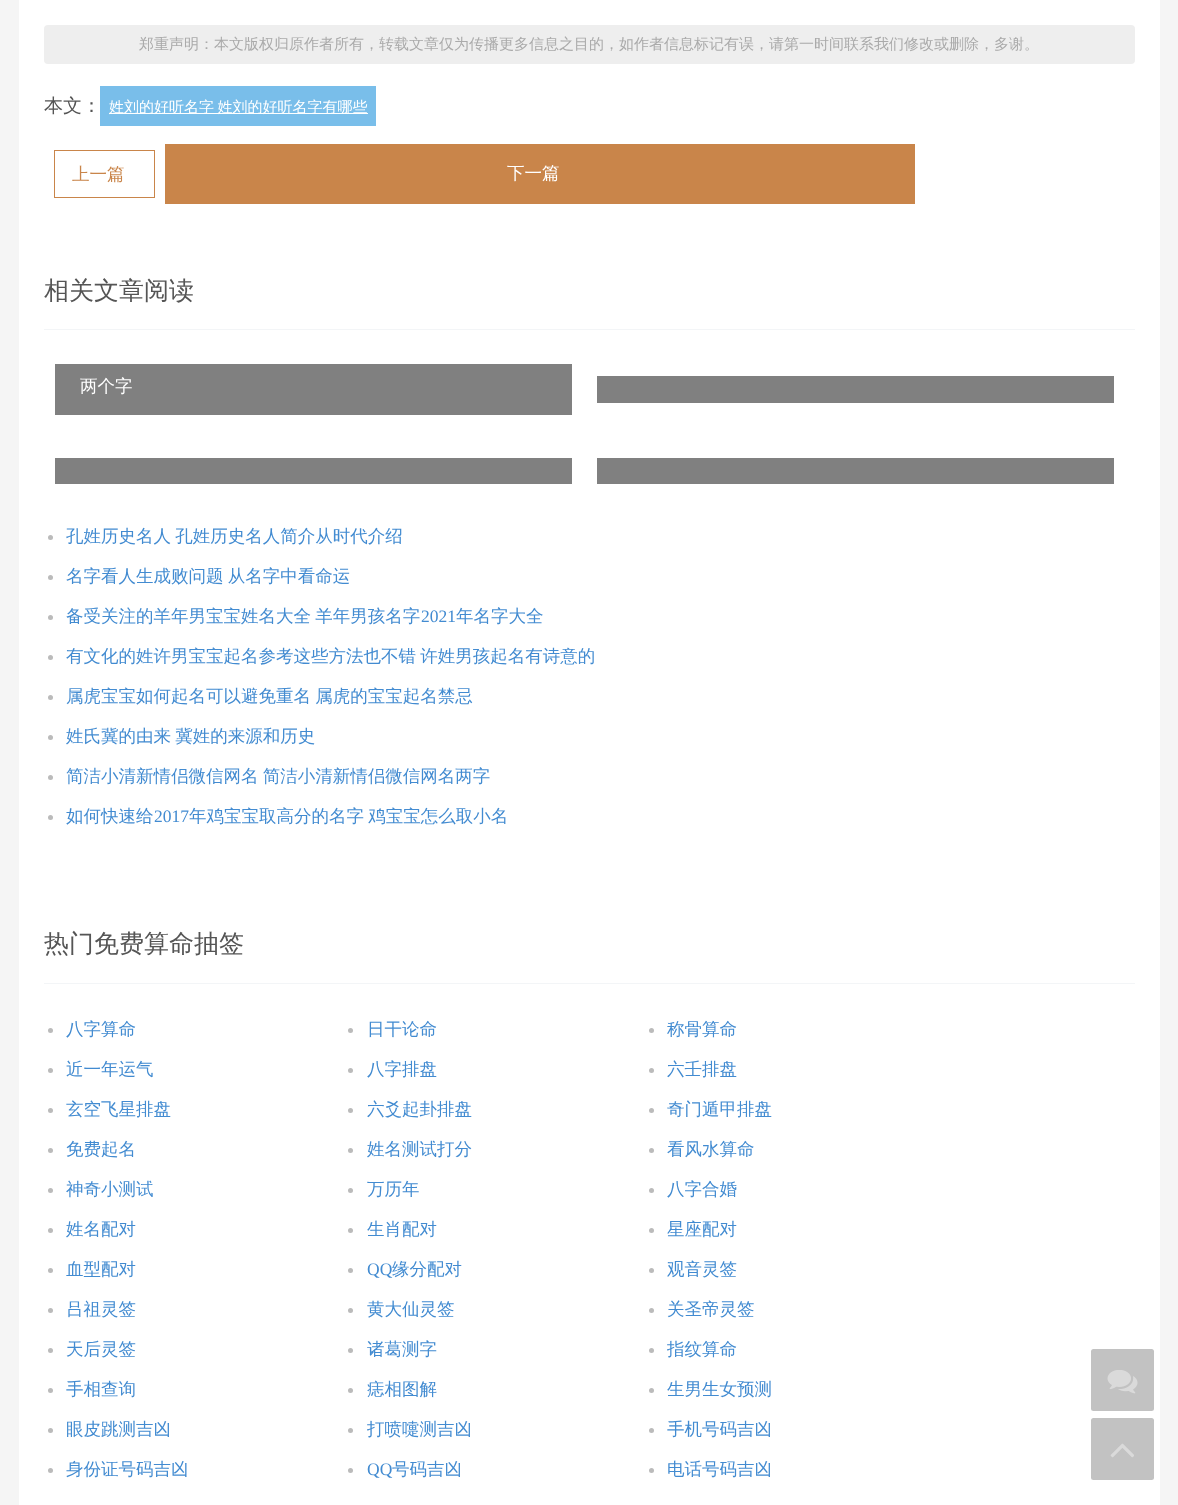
<!DOCTYPE html>
<meta charset="utf-8">
<style>body { margin: 0 } canvas { display: block }</style>
<canvas id="canvas" width="1178" height="1505"></canvas>
<img id="img1" src="images/1.png" hidden>
<img id="img2" src="images/2.png" hidden>
<script>
window.onload = function () {
    const canvas = document.getElementById('canvas');
    const context = canvas.getContext('2d');
    context.miterLimit = 4;
    context.fontKerning = 'normal';

    context.fillStyle = 'rgb(245, 245, 245)';
    context.fillRect(0, 0, 1178, 1505);
    context.fillStyle = 'rgb(255, 255, 255)';
    context.fillRect(19, 0, 1141, 1505);
    context.fillStyle = 'rgb(238, 238, 238)';
    context.beginPath();
    context.roundRect(44, 25, 1091, 39, 4);
    context.fill();
    context.fillStyle = 'rgb(121, 190, 234)';
    context.fillRect(100, 86, 276, 40);
    context.fillStyle = 'rgb(255, 255, 255)';
    context.fillRect(109, 113, 259, 1);
    context.strokeStyle = 'rgb(201, 133, 74)';
    context.strokeRect(54.5, 150.5, 100, 47);
    context.fillStyle = 'rgb(201, 133, 74)';
    context.fillRect(165, 144, 750, 60);
    context.fillStyle = 'rgb(243, 245, 247)';
    context.fillRect(44, 329, 1091, 1);
    context.fillStyle = 'rgb(128, 128, 128)';
    context.fillRect(55, 364, 517, 51);
    context.fillRect(597, 376, 517, 27);
    context.fillRect(55, 458, 517, 26);
    context.fillRect(597, 458, 517, 26);
    context.fillStyle = 'rgb(187, 187, 187)';
    context.beginPath();
    context.arc(50.5, 537.5, 2.5, 0, 2 * Math.PI);
    context.fill();
    context.beginPath();
    context.arc(50.5, 577.5, 2.5, 0, 2 * Math.PI);
    context.fill();
    context.beginPath();
    context.arc(50.5, 617.5, 2.5, 0, 2 * Math.PI);
    context.fill();
    context.beginPath();
    context.arc(50.5, 657.5, 2.5, 0, 2 * Math.PI);
    context.fill();
    context.beginPath();
    context.arc(50.5, 697.5, 2.5, 0, 2 * Math.PI);
    context.fill();
    context.beginPath();
    context.arc(50.5, 737.5, 2.5, 0, 2 * Math.PI);
    context.fill();
    context.beginPath();
    context.arc(50.5, 777.5, 2.5, 0, 2 * Math.PI);
    context.fill();
    context.beginPath();
    context.arc(50.5, 817.5, 2.5, 0, 2 * Math.PI);
    context.fill();
    context.fillStyle = 'rgb(243, 245, 247)';
    context.fillRect(44, 983, 1091, 1);
    context.fillStyle = 'rgb(187, 187, 187)';
    context.beginPath();
    context.arc(50.5, 1030.5, 2.5, 0, 2 * Math.PI);
    context.fill();
    context.beginPath();
    context.arc(350.5, 1030.5, 2.5, 0, 2 * Math.PI);
    context.fill();
    context.beginPath();
    context.arc(651.5, 1030.5, 2.5, 0, 2 * Math.PI);
    context.fill();
    context.beginPath();
    context.arc(50.5, 1070.5, 2.5, 0, 2 * Math.PI);
    context.fill();
    context.beginPath();
    context.arc(350.5, 1070.5, 2.5, 0, 2 * Math.PI);
    context.fill();
    context.beginPath();
    context.arc(651.5, 1070.5, 2.5, 0, 2 * Math.PI);
    context.fill();
    context.beginPath();
    context.arc(50.5, 1110.5, 2.5, 0, 2 * Math.PI);
    context.fill();
    context.beginPath();
    context.arc(350.5, 1110.5, 2.5, 0, 2 * Math.PI);
    context.fill();
    context.beginPath();
    context.arc(651.5, 1110.5, 2.5, 0, 2 * Math.PI);
    context.fill();
    context.beginPath();
    context.arc(50.5, 1150.5, 2.5, 0, 2 * Math.PI);
    context.fill();
    context.beginPath();
    context.arc(350.5, 1150.5, 2.5, 0, 2 * Math.PI);
    context.fill();
    context.beginPath();
    context.arc(651.5, 1150.5, 2.5, 0, 2 * Math.PI);
    context.fill();
    context.beginPath();
    context.arc(50.5, 1190.5, 2.5, 0, 2 * Math.PI);
    context.fill();
    context.beginPath();
    context.arc(350.5, 1190.5, 2.5, 0, 2 * Math.PI);
    context.fill();
    context.beginPath();
    context.arc(651.5, 1190.5, 2.5, 0, 2 * Math.PI);
    context.fill();
    context.beginPath();
    context.arc(50.5, 1230.5, 2.5, 0, 2 * Math.PI);
    context.fill();
    context.beginPath();
    context.arc(350.5, 1230.5, 2.5, 0, 2 * Math.PI);
    context.fill();
    context.beginPath();
    context.arc(651.5, 1230.5, 2.5, 0, 2 * Math.PI);
    context.fill();
    context.beginPath();
    context.arc(50.5, 1270.5, 2.5, 0, 2 * Math.PI);
    context.fill();
    context.beginPath();
    context.arc(350.5, 1270.5, 2.5, 0, 2 * Math.PI);
    context.fill();
    context.beginPath();
    context.arc(651.5, 1270.5, 2.5, 0, 2 * Math.PI);
    context.fill();
    context.beginPath();
    context.arc(50.5, 1310.5, 2.5, 0, 2 * Math.PI);
    context.fill();
    context.beginPath();
    context.arc(350.5, 1310.5, 2.5, 0, 2 * Math.PI);
    context.fill();
    context.beginPath();
    context.arc(651.5, 1310.5, 2.5, 0, 2 * Math.PI);
    context.fill();
    context.beginPath();
    context.arc(50.5, 1350.5, 2.5, 0, 2 * Math.PI);
    context.fill();
    context.beginPath();
    context.arc(350.5, 1350.5, 2.5, 0, 2 * Math.PI);
    context.fill();
    context.beginPath();
    context.arc(651.5, 1350.5, 2.5, 0, 2 * Math.PI);
    context.fill();
    context.beginPath();
    context.arc(50.5, 1390.5, 2.5, 0, 2 * Math.PI);
    context.fill();
    context.beginPath();
    context.arc(350.5, 1390.5, 2.5, 0, 2 * Math.PI);
    context.fill();
    context.beginPath();
    context.arc(651.5, 1390.5, 2.5, 0, 2 * Math.PI);
    context.fill();
    context.beginPath();
    context.arc(50.5, 1430.5, 2.5, 0, 2 * Math.PI);
    context.fill();
    context.beginPath();
    context.arc(350.5, 1430.5, 2.5, 0, 2 * Math.PI);
    context.fill();
    context.beginPath();
    context.arc(651.5, 1430.5, 2.5, 0, 2 * Math.PI);
    context.fill();
    context.beginPath();
    context.arc(50.5, 1470.5, 2.5, 0, 2 * Math.PI);
    context.fill();
    context.beginPath();
    context.arc(350.5, 1470.5, 2.5, 0, 2 * Math.PI);
    context.fill();
    context.beginPath();
    context.arc(651.5, 1470.5, 2.5, 0, 2 * Math.PI);
    context.fill();
    context.fillStyle = 'rgb(194, 194, 194)';
    context.beginPath();
    context.roundRect(1091, 1349, 63, 62, 2.5);
    context.fill();
    context.drawImage(document.getElementById('img1'), 1107, 1370, 31, 24);
    context.beginPath();
    context.roundRect(1091, 1418, 63, 62, 2.5);
    context.fill();
    context.drawImage(document.getElementById('img2'), 1110, 1443, 24, 15);
    context.font = '500 15px WenQuanYi Zen Hei';
    context.fillStyle = 'rgb(170, 170, 170)';
    context.fillText('郑重声明：本文版权归原作者所有，转载文章仅为传播更多信息之目的，如作者信息标记有误，请第一时间联系我们修改或删除，多谢。', 139, 49);
    context.font = '500 19px WenQuanYi Zen Hei';
    context.fillStyle = 'rgb(85, 85, 85)';
    context.fillText('本文：', 44, 112);
    context.wordSpacing = '-1px';
    context.font = '500 15px WenQuanYi Zen Hei';
    context.fillStyle = 'rgb(255, 255, 255)';
    context.fillText('姓刘的好听名字 姓刘的好听名字有哪些', 109, 112);
    context.wordSpacing = '0px';
    context.font = '500 17.5px WenQuanYi Zen Hei';
    context.fillStyle = 'rgb(201, 133, 74)';
    context.fillText('上一篇', 72, 180);
    context.fillStyle = 'rgb(255, 255, 255)';
    context.fillText('下一篇', 507, 179);
    context.font = '500 25px WenQuanYi Zen Hei';
    context.fillStyle = 'rgb(85, 85, 85)';
    context.fillText('相关文章阅读', 44, 299);
    context.font = '500 17.5px WenQuanYi Zen Hei';
    context.fillStyle = 'rgb(255, 255, 255)';
    context.fillText('两个字', 80, 392);
    context.wordSpacing = '-1px';
    context.fillStyle = 'rgb(66, 139, 209)';
    context.fillText('孔姓历史名人 孔姓历史名人简介从时代介绍', 66, 542);
    context.fillText('名字看人生成败问题 从名字中看命运', 66, 582);
    context.fillText('备受关注的羊年男宝宝姓名大全 羊年男孩名字', 66, 622);
    context.wordSpacing = '0px';
    context.font = '17.5px Liberation Serif';
    context.fillText('2021', 421, 622);
    context.font = '500 17.5px WenQuanYi Zen Hei';
    context.fillText('年名字大全', 456, 622);
    context.wordSpacing = '-1px';
    context.fillText('有文化的姓许男宝宝起名参考这些方法也不错 许姓男孩起名有诗意的', 66, 662);
    context.fillText('属虎宝宝如何起名可以避免重名 属虎的宝宝起名禁忌', 66, 702);
    context.fillText('姓氏冀的由来 冀姓的来源和历史', 66, 742);
    context.fillText('简洁小清新情侣微信网名 简洁小清新情侣微信网名两字', 66, 782);
    context.wordSpacing = '0px';
    context.fillText('如何快速给', 66, 822);
    context.font = '17.5px Liberation Serif';
    context.fillText('2017', 154, 822);
    context.wordSpacing = '-1px';
    context.font = '500 17.5px WenQuanYi Zen Hei';
    context.fillText('年鸡宝宝取高分的名字 鸡宝宝怎么取小名', 189, 822);
    context.wordSpacing = '0px';
    context.font = '500 25px WenQuanYi Zen Hei';
    context.fillStyle = 'rgb(85, 85, 85)';
    context.fillText('热门免费算命抽签', 44, 952);
    context.font = '500 17.5px WenQuanYi Zen Hei';
    context.fillStyle = 'rgb(66, 139, 209)';
    context.fillText('八字算命', 66, 1035);
    context.fillText('日干论命', 367, 1035);
    context.fillText('称骨算命', 667, 1035);
    context.fillText('近一年运气', 66, 1075);
    context.fillText('八字排盘', 367, 1075);
    context.fillText('六壬排盘', 667, 1075);
    context.fillText('玄空飞星排盘', 66, 1115);
    context.fillText('六爻起卦排盘', 367, 1115);
    context.fillText('奇门遁甲排盘', 667, 1115);
    context.fillText('免费起名', 66, 1155);
    context.fillText('姓名测试打分', 367, 1155);
    context.fillText('看风水算命', 667, 1155);
    context.fillText('神奇小测试', 66, 1195);
    context.fillText('万历年', 367, 1195);
    context.fillText('八字合婚', 667, 1195);
    context.fillText('姓名配对', 66, 1235);
    context.fillText('生肖配对', 367, 1235);
    context.fillText('星座配对', 667, 1235);
    context.fillText('血型配对', 66, 1275);
    context.font = '17.5px Liberation Serif';
    context.fillText('QQ', 367, 1275);
    context.font = '500 17.5px WenQuanYi Zen Hei';
    context.fillText('缘分配对', 392, 1275);
    context.fillText('观音灵签', 667, 1275);
    context.fillText('吕祖灵签', 66, 1315);
    context.fillText('黄大仙灵签', 367, 1315);
    context.fillText('关圣帝灵签', 667, 1315);
    context.fillText('天后灵签', 66, 1355);
    context.fillText('诸葛测字', 367, 1355);
    context.fillText('指纹算命', 667, 1355);
    context.fillText('手相查询', 66, 1395);
    context.fillText('痣相图解', 367, 1395);
    context.fillText('生男生女预测', 667, 1395);
    context.fillText('眼皮跳测吉凶', 66, 1435);
    context.fillText('打喷嚏测吉凶', 367, 1435);
    context.fillText('手机号码吉凶', 667, 1435);
    context.fillText('身份证号码吉凶', 66, 1475);
    context.font = '17.5px Liberation Serif';
    context.fillText('QQ', 367, 1475);
    context.font = '500 17.5px WenQuanYi Zen Hei';
    context.fillText('号码吉凶', 392, 1475);
    context.fillText('电话号码吉凶', 667, 1475);
};
</script>
